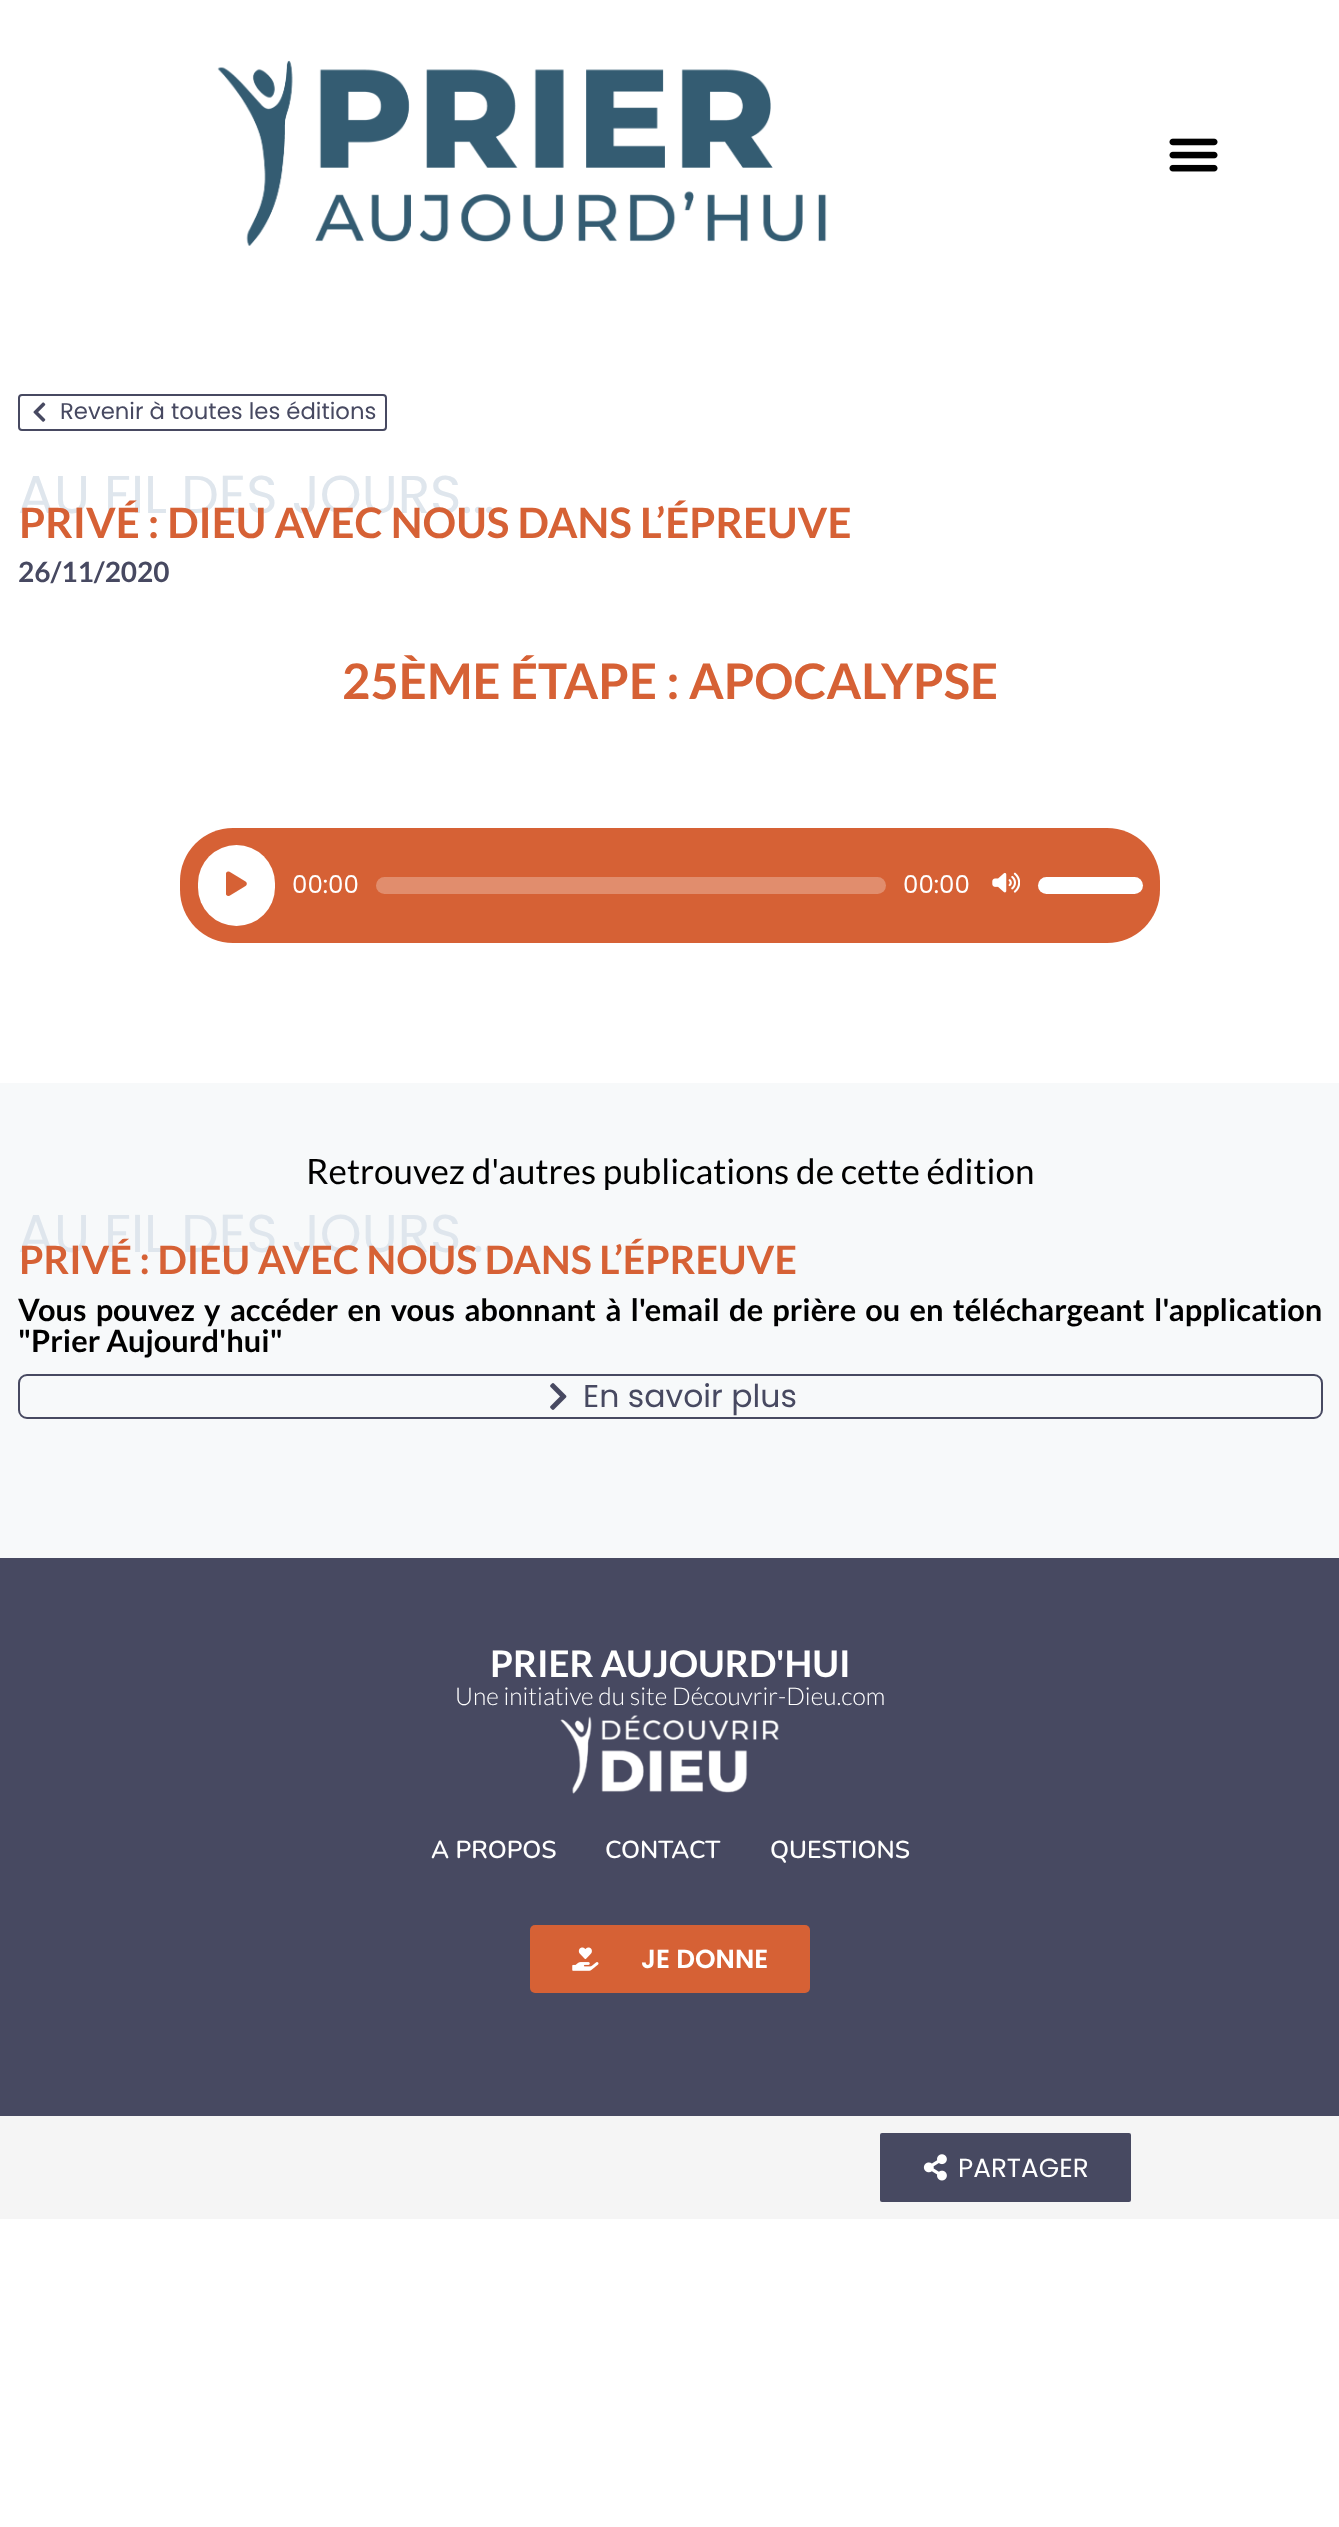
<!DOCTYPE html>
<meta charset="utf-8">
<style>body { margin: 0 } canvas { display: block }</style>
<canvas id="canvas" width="1339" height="2527"></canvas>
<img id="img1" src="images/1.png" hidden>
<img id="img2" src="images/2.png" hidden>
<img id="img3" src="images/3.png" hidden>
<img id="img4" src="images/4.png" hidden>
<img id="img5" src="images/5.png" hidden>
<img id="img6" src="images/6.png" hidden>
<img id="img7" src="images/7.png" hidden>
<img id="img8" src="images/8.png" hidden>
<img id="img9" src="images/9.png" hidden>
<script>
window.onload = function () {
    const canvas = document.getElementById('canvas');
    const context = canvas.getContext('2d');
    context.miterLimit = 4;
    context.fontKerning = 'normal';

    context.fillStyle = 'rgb(255, 255, 255)';
    context.fillRect(0, 0, 1339, 2527);
    context.drawImage(document.getElementById('img1'), 217, 60, 610, 186);
    context.drawImage(document.getElementById('img2'), 1169, 138, 49, 34);
    context.beginPath();
    context.roundRect(19, 395, 367, 35, 3);
    context.strokeStyle = 'rgb(71, 73, 97)';
    context.lineWidth = 2;
    context.stroke();
    context.drawImage(document.getElementById('img3'), 33, 402, 13, 20);
    context.fillStyle = 'rgb(214, 97, 53)';
    context.beginPath();
    context.roundRect(180, 828, 980, 115, 53);
    context.fill();
    context.fillStyle = 'rgb(255, 255, 255)';
    context.beginPath();
    context.roundRect(198, 845, 77, 81, 38.5);
    context.fill();
    context.drawImage(document.getElementById('img4'), 226, 871, 21, 25);
    context.fillStyle = 'rgb(225, 141, 109)';
    context.beginPath();
    context.roundRect(376, 877, 510, 17, 8.5);
    context.fill();
    context.drawImage(document.getElementById('img5'), 992, 872, 28, 21);
    context.fillStyle = 'rgb(255, 255, 255)';
    context.beginPath();
    context.roundRect(1038, 877, 105, 17, 8.5);
    context.fill();
    context.fillStyle = 'rgb(247, 249, 250)';
    context.fillRect(0, 1083, 1339, 475);
    context.beginPath();
    context.roundRect(19, 1375, 1303, 43, 8);
    context.stroke();
    context.drawImage(document.getElementById('img6'), 550, 1383, 17, 27);
    context.fillStyle = 'rgb(71, 73, 97)';
    context.fillRect(0, 1558, 1339, 558);
    context.drawImage(document.getElementById('img7'), 560, 1715, 219, 79);
    context.fillStyle = 'rgb(214, 97, 53)';
    context.beginPath();
    context.roundRect(530, 1925, 280, 68, 5);
    context.fill();
    context.drawImage(document.getElementById('img8'), 572, 1947, 27, 24);
    context.fillStyle = 'rgb(245, 245, 245)';
    context.fillRect(0, 2116, 1339, 103);
    context.fillStyle = 'rgb(71, 73, 97)';
    context.beginPath();
    context.roundRect(880, 2133, 251, 69, 2);
    context.fill();
    context.drawImage(document.getElementById('img9'), 923, 2154, 24, 27);
    context.font = '22.75px Poppins';
    context.fillText('Revenir à toutes les éditions', 60, 419);
    context.font = '53.25px Poppins';
    context.fillStyle = 'rgb(223, 230, 237)';
    context.fillText('AU FIL DES JOURS...', 18, 513);
    context.font = 'bold 42px Lato';
    context.fillStyle = 'rgb(214, 97, 53)';
    context.fillText('PRIVÉ : DIEU AVEC NOUS DANS L’ÉPREUVE', 19, 538);
    context.font = 'bold 28px Lato';
    context.fillStyle = 'rgb(71, 73, 97)';
    context.fillText('26/11/2020', 18, 582);
    context.font = 'bold 49px Lato';
    context.fillStyle = 'rgb(214, 97, 53)';
    context.fillText('25ÈME ÉTAPE : APOCALYPSE', 342, 699);
    context.font = '24.5px Poppins';
    context.fillStyle = 'rgb(255, 255, 255)';
    context.fillText('00:00', 292, 893);
    context.fillText('00:00', 903, 893);
    context.font = '35px Lato';
    context.fillStyle = 'rgb(0, 0, 0)';
    context.fillText('Retrouvez d\'autres publications de cette édition', 306, 1184);
    context.font = '53.25px Poppins';
    context.fillStyle = 'rgb(223, 230, 237)';
    context.fillText('AU FIL DES JOURS...', 18, 1252);
    context.font = 'bold 39.25px Lato';
    context.fillStyle = 'rgb(214, 97, 53)';
    context.fillText('PRIVÉ : DIEU AVEC NOUS DANS L’ÉPREUVE', 19, 1274);
    context.wordSpacing = '3.25px';
    context.font = 'bold 30.8px Lato';
    context.fillStyle = 'rgb(0, 0, 0)';
    context.fillText('Vous pouvez y accéder en vous abonnant à l\'email de prière ou en téléchargeant l\'application', 18, 1321);
    context.wordSpacing = '0px';
    context.fillText('"Prier Aujourd\'hui"', 18, 1352);
    context.font = '31.5px Poppins';
    context.fillStyle = 'rgb(71, 73, 97)';
    context.fillText('En savoir plus', 583, 1407);
    context.font = 'bold 36.75px Lato';
    context.fillStyle = 'rgb(255, 255, 255)';
    context.fillText('PRIER AUJOURD\'HUI', 490, 1677);
    context.font = '300 24.5px Lato';
    context.fillText('Une initiative du site Découvrir-Dieu.com', 455, 1705);
    context.font = '600 24.5px Nunito';
    context.fillText('A PROPOS', 431, 1858);
    context.fillText('CONTACT', 605, 1858);
    context.fillText('QUESTIONS', 770, 1858);
    context.font = '600 26.25px Poppins';
    context.fillText('JE DONNE', 641, 1968);
    context.font = '26.25px Poppins';
    context.fillText('PARTAGER', 958, 2177);
};
</script>
